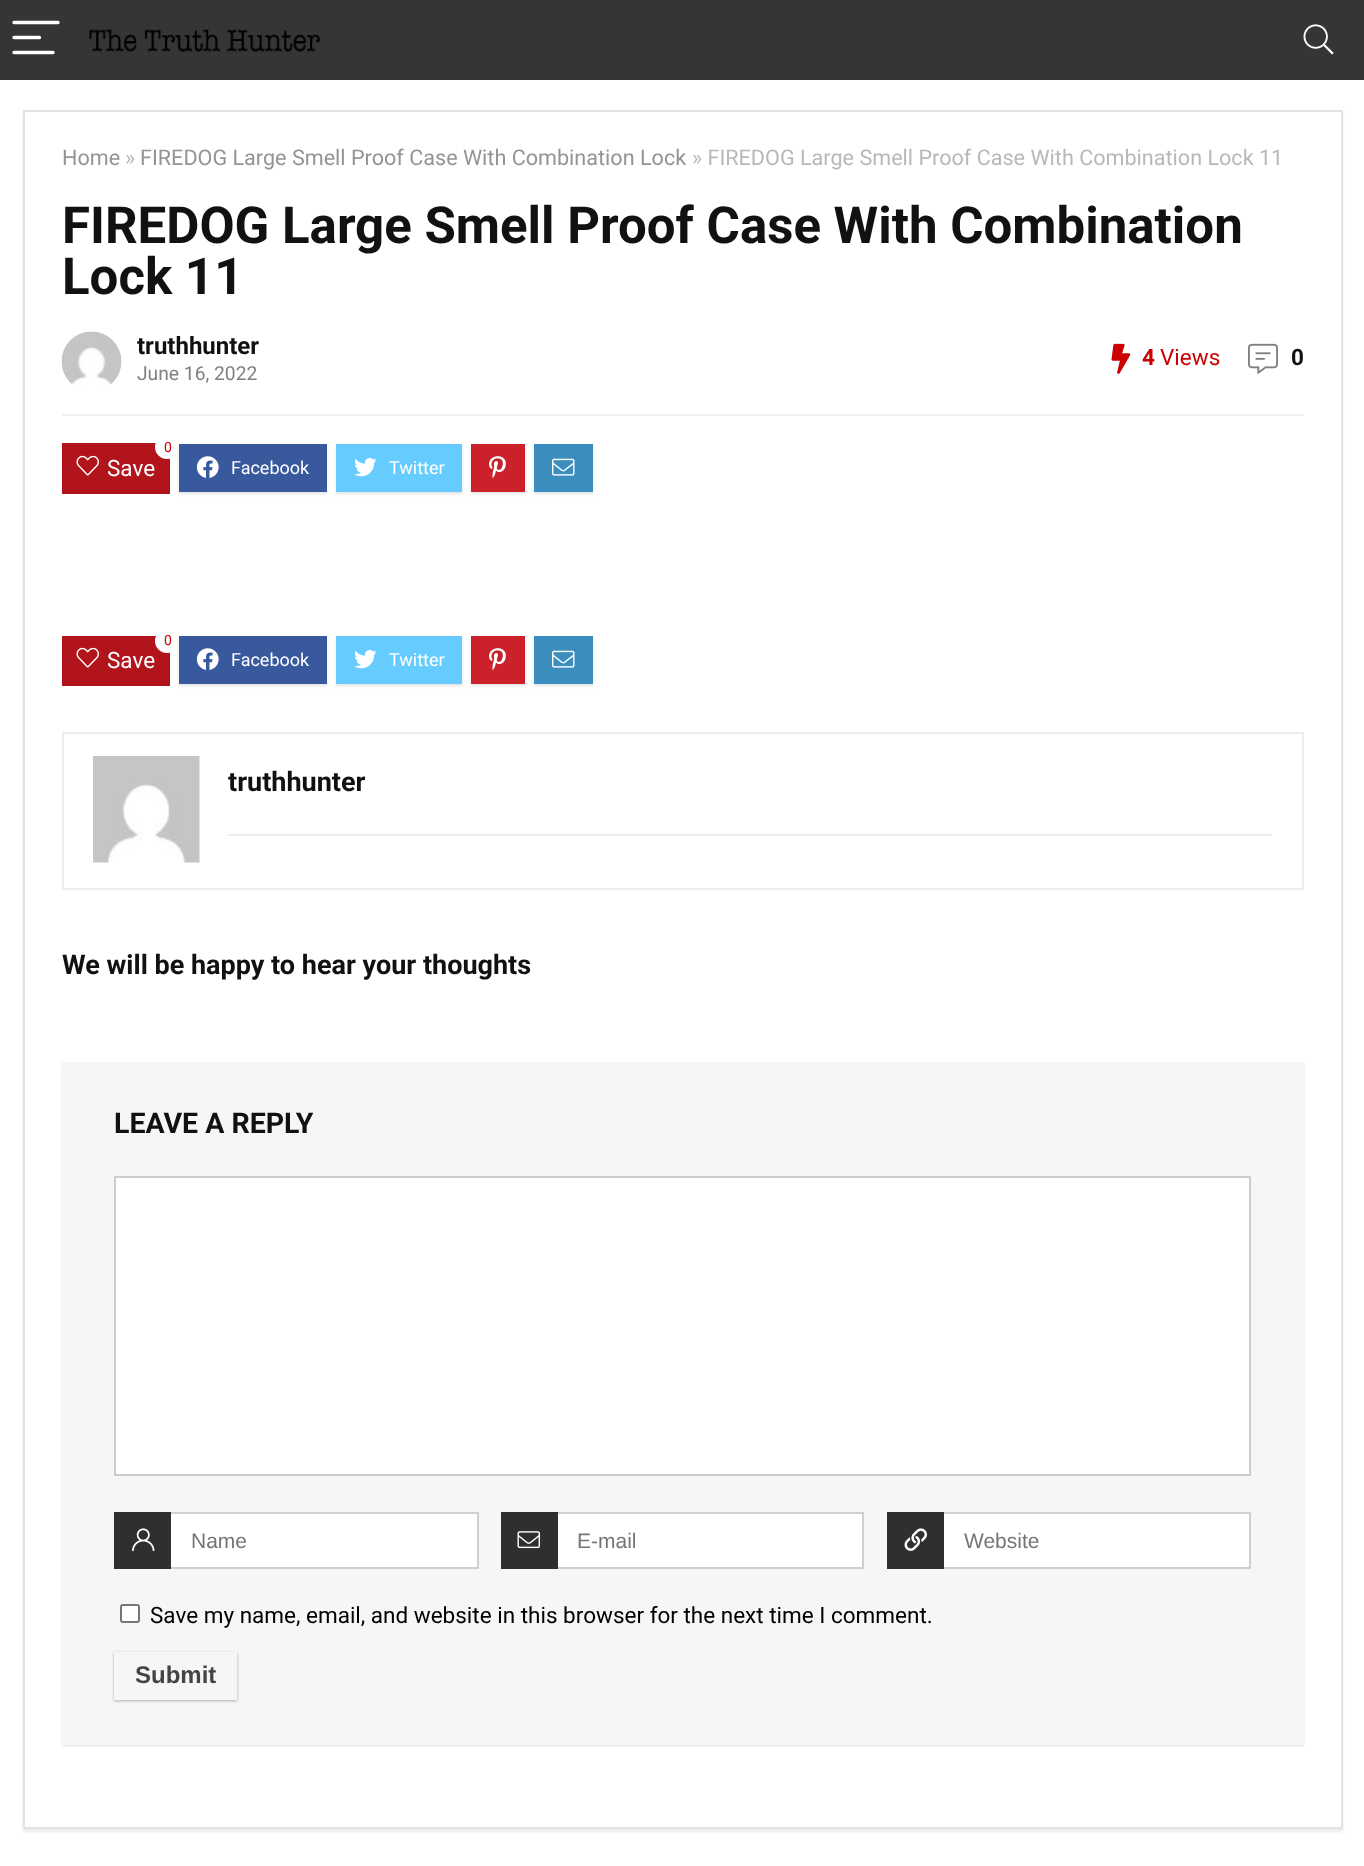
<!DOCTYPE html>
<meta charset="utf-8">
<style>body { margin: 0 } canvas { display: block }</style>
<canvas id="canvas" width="1364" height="1866"></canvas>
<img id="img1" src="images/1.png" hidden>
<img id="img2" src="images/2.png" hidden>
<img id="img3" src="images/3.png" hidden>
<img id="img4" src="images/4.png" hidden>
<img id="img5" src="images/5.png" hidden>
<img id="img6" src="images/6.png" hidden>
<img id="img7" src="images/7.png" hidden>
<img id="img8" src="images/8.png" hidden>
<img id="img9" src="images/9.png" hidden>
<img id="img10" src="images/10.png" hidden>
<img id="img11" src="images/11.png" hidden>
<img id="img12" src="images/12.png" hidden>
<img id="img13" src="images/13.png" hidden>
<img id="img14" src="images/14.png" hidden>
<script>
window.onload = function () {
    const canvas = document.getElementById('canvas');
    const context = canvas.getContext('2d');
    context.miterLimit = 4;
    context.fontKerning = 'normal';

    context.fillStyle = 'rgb(255, 255, 255)';
    context.fillRect(0, 0, 1364, 1866);
    context.fillStyle = 'rgb(53, 53, 53)';
    context.fillRect(0, 0, 1364, 80);
    context.beginPath();
    context.moveTo(14, 22.5);
    context.lineTo(58, 22.5);
    context.moveTo(14, 37.5);
    context.lineTo(39.5, 37.5);
    context.moveTo(14, 52.5);
    context.lineTo(53, 52.5);
    context.strokeStyle = 'rgb(255, 255, 255)';
    context.lineWidth = 3.4;
    context.lineCap = 'round';
    context.stroke();
    context.drawImage(document.getElementById('img1'), 89, 29, 232, 23);
    context.drawImage(document.getElementById('img2'), 1303, 24, 31, 31);
    context.fillStyle = 'rgb(236, 236, 236)';
    context.filter = 'blur(1.5px)';
    context.beginPath();
    context.rect(23, 113, 1320, 1719);
    context.fill();
    context.filter = 'none';
    context.fillStyle = 'rgb(255, 255, 255)';
    context.beginPath();
    context.rect(24, 111, 1318, 1717);
    context.fill();
    context.strokeStyle = 'rgb(227, 227, 227)';
    context.lineWidth = 2;
    context.stroke();
    context.fillStyle = 'rgb(240, 240, 240)';
    context.fillRect(62, 414, 1242, 2);
    context.drawImage(document.getElementById('img3'), 61, 331, 61, 54);
    context.drawImage(document.getElementById('img4'), 1111, 343, 20, 31);
    context.drawImage(document.getElementById('img5'), 1248, 343, 30, 31);
    context.fillStyle = 'rgb(177, 20, 26)';
    context.fillRect(62, 443, 108, 51);
    context.save();
    context.beginPath();
    context.rect(62, 438, 1242, 65);
    context.clip();
    context.fillStyle = 'rgb(255, 255, 255)';
    context.beginPath();
    context.roundRect(155, 435, 25, 24, 12);
    context.fill();
    context.restore();
    context.drawImage(document.getElementById('img6'), 76, 455, 23, 21);
    context.fillStyle = 'rgb(228, 228, 228)';
    context.filter = 'blur(1.5px)';
    context.beginPath();
    context.rect(179, 446, 148, 48);
    context.fill();
    context.filter = 'none';
    context.fillStyle = 'rgb(57, 89, 159)';
    context.fillRect(179, 444, 148, 48);
    context.drawImage(document.getElementById('img7'), 196, 456, 23, 22);
    context.fillStyle = 'rgb(228, 228, 228)';
    context.filter = 'blur(1.5px)';
    context.beginPath();
    context.rect(336, 446, 126, 48);
    context.fill();
    context.filter = 'none';
    context.fillStyle = 'rgb(102, 204, 255)';
    context.fillRect(336, 444, 126, 48);
    context.drawImage(document.getElementById('img8'), 354, 458, 23, 19);
    context.fillStyle = 'rgb(228, 228, 228)';
    context.filter = 'blur(1.5px)';
    context.beginPath();
    context.rect(471, 446, 54, 48);
    context.fill();
    context.filter = 'none';
    context.fillStyle = 'rgb(202, 33, 42)';
    context.fillRect(471, 444, 54, 48);
    context.drawImage(document.getElementById('img9'), 489, 456, 17, 23);
    context.fillStyle = 'rgb(228, 228, 228)';
    context.filter = 'blur(1.5px)';
    context.beginPath();
    context.rect(534, 446, 59, 48);
    context.fill();
    context.filter = 'none';
    context.fillStyle = 'rgb(59, 141, 189)';
    context.fillRect(534, 444, 59, 48);
    context.drawImage(document.getElementById('img10'), 552, 458, 23, 18);
    context.fillStyle = 'rgb(177, 20, 26)';
    context.fillRect(62, 636, 108, 50);
    context.fillStyle = 'rgb(255, 255, 255)';
    context.beginPath();
    context.roundRect(155, 629, 25, 24, 12);
    context.fill();
    context.drawImage(document.getElementById('img6'), 76, 647, 23, 21);
    context.fillStyle = 'rgb(228, 228, 228)';
    context.filter = 'blur(1.5px)';
    context.beginPath();
    context.rect(179, 638, 148, 48);
    context.fill();
    context.filter = 'none';
    context.fillStyle = 'rgb(57, 89, 159)';
    context.fillRect(179, 636, 148, 48);
    context.drawImage(document.getElementById('img7'), 196, 648, 23, 22);
    context.fillStyle = 'rgb(228, 228, 228)';
    context.filter = 'blur(1.5px)';
    context.beginPath();
    context.rect(336, 638, 126, 48);
    context.fill();
    context.filter = 'none';
    context.fillStyle = 'rgb(102, 204, 255)';
    context.fillRect(336, 636, 126, 48);
    context.drawImage(document.getElementById('img8'), 354, 650, 23, 19);
    context.fillStyle = 'rgb(228, 228, 228)';
    context.filter = 'blur(1.5px)';
    context.beginPath();
    context.rect(471, 638, 54, 48);
    context.fill();
    context.filter = 'none';
    context.fillStyle = 'rgb(202, 33, 42)';
    context.fillRect(471, 636, 54, 48);
    context.drawImage(document.getElementById('img9'), 489, 648, 17, 23);
    context.fillStyle = 'rgb(228, 228, 228)';
    context.filter = 'blur(1.5px)';
    context.beginPath();
    context.rect(534, 638, 59, 48);
    context.fill();
    context.filter = 'none';
    context.fillStyle = 'rgb(59, 141, 189)';
    context.fillRect(534, 636, 59, 48);
    context.drawImage(document.getElementById('img10'), 552, 650, 23, 18);
    context.strokeStyle = 'rgb(237, 237, 237)';
    context.strokeRect(63, 733, 1240, 156);
    context.drawImage(document.getElementById('img11'), 93, 756, 107, 107);
    context.fillStyle = 'rgb(238, 238, 238)';
    context.fillRect(228, 834, 1044, 2);
    context.fillStyle = 'rgba(0, 0, 0, 0.12)';
    context.filter = 'blur(1px)';
    context.beginPath();
    context.rect(62, 1064, 1242, 682);
    context.fill();
    context.filter = 'none';
    context.fillStyle = 'rgb(246, 246, 246)';
    context.fillRect(62, 1062, 1242, 683);
    context.fillStyle = 'rgb(255, 255, 255)';
    context.beginPath();
    context.rect(115, 1177, 1135, 298);
    context.fill();
    context.strokeStyle = 'rgb(204, 204, 204)';
    context.stroke();
    context.fillRect(171, 1514, 306, 53);
    context.strokeStyle = 'rgb(203, 208, 210)';
    context.strokeRect(115, 1513, 363, 55);
    context.fillStyle = 'rgb(47, 47, 47)';
    context.fillRect(114, 1512, 57, 57);
    context.drawImage(document.getElementById('img12'), 132, 1528, 23, 23);
    context.fillStyle = 'rgb(255, 255, 255)';
    context.fillRect(558, 1514, 304, 53);
    context.strokeRect(502, 1513, 361, 55);
    context.fillStyle = 'rgb(47, 47, 47)';
    context.fillRect(501, 1512, 57, 57);
    context.drawImage(document.getElementById('img13'), 517, 1531, 23, 18);
    context.fillStyle = 'rgb(255, 255, 255)';
    context.fillRect(944, 1514, 305, 53);
    context.strokeRect(888, 1513, 362, 55);
    context.fillStyle = 'rgb(47, 47, 47)';
    context.fillRect(887, 1512, 57, 57);
    context.drawImage(document.getElementById('img14'), 904, 1528, 23, 23);
    context.fillStyle = 'rgb(255, 255, 255)';
    context.beginPath();
    context.roundRect(121, 1605, 18, 17, 2);
    context.fill();
    context.strokeStyle = 'rgb(118, 118, 118)';
    context.stroke();
    context.fillStyle = 'rgba(0, 0, 0, 0.08)';
    context.filter = 'blur(1.5px)';
    context.beginPath();
    context.rect(114, 1653, 123, 48);
    context.fill();
    context.filter = 'none';
    context.fillStyle = 'rgba(60, 64, 67, 0.3)';
    context.filter = 'blur(1.5px)';
    context.beginPath();
    context.rect(114, 1653, 123, 48);
    context.fill();
    context.filter = 'none';
    context.fillStyle = 'rgb(246, 246, 246)';
    context.fillRect(114, 1652, 123, 48);
    context.font = '21.6px Roboto';
    context.fillStyle = 'rgb(148, 148, 148)';
    context.fillText('Home', 62, 165);
    context.fillStyle = 'rgb(184, 184, 184)';
    context.fillText('»', 125, 165);
    context.fillStyle = 'rgb(148, 148, 148)';
    context.fillText('FIREDOG Large Smell Proof Case With Combination Lock', 140, 165);
    context.fillStyle = 'rgb(184, 184, 184)';
    context.fillText('» FIREDOG Large Smell Proof Case With Combination Lock 11', 692, 165);
    context.font = 'bold 51px Roboto';
    context.fillStyle = 'rgb(17, 17, 17)';
    context.fillText('FIREDOG Large Smell Proof Case With Combination', 62, 243);
    context.fillText('Lock 11', 62, 294);
    context.font = 'bold 24px Roboto';
    context.fillText('truthhunter', 137, 354);
    context.font = '19.25px Roboto';
    context.fillStyle = 'rgb(128, 128, 128)';
    context.fillText('June 16, 2022', 137, 380);
    context.font = 'bold 22.5px Roboto';
    context.fillStyle = 'rgb(204, 0, 0)';
    context.fillText('4', 1142, 365);
    context.font = '22.5px Roboto';
    context.fillText('Views', 1160, 365);
    context.font = 'bold 22.5px Roboto';
    context.fillStyle = 'rgb(17, 17, 17)';
    context.fillText('0', 1291, 365);
    context.font = '14px Roboto';
    context.fillStyle = 'rgb(204, 0, 0)';
    context.fillText('0', 164, 452);
    context.font = '22.5px Roboto';
    context.fillStyle = 'rgb(255, 255, 255)';
    context.fillText('Save', 107, 476);
    context.font = '18px Roboto';
    context.fillText('Facebook', 231, 474);
    context.fillText('Twitter', 389, 474);
    context.font = '14px Roboto';
    context.fillStyle = 'rgb(204, 0, 0)';
    context.fillText('0', 164, 645);
    context.font = '22.5px Roboto';
    context.fillStyle = 'rgb(255, 255, 255)';
    context.fillText('Save', 107, 668);
    context.font = '18px Roboto';
    context.fillText('Facebook', 231, 666);
    context.fillText('Twitter', 389, 666);
    context.font = 'bold 27px Roboto';
    context.fillStyle = 'rgb(17, 17, 17)';
    context.fillText('truthhunter', 228, 791);
    context.fillText('We will be happy to hear your thoughts', 62, 974);
    context.font = 'bold 28.5px Roboto';
    context.fillText('LEAVE A REPLY', 114, 1133);
    context.font = '21px Liberation Sans';
    context.fillStyle = 'rgb(117, 117, 117)';
    context.fillText('Name', 191, 1548);
    context.fillText('E-mail', 577, 1548);
    context.fillText('Website', 964, 1548);
    context.font = '22.5px Roboto';
    context.fillStyle = 'rgb(0, 0, 0)';
    context.fillText('Save my name, email, and website in this browser for the next time I comment.', 150, 1623);
    context.font = 'bold 24px Liberation Sans';
    context.fillStyle = 'rgb(68, 68, 68)';
    context.fillText('Submit', 135, 1683);
};
</script>
